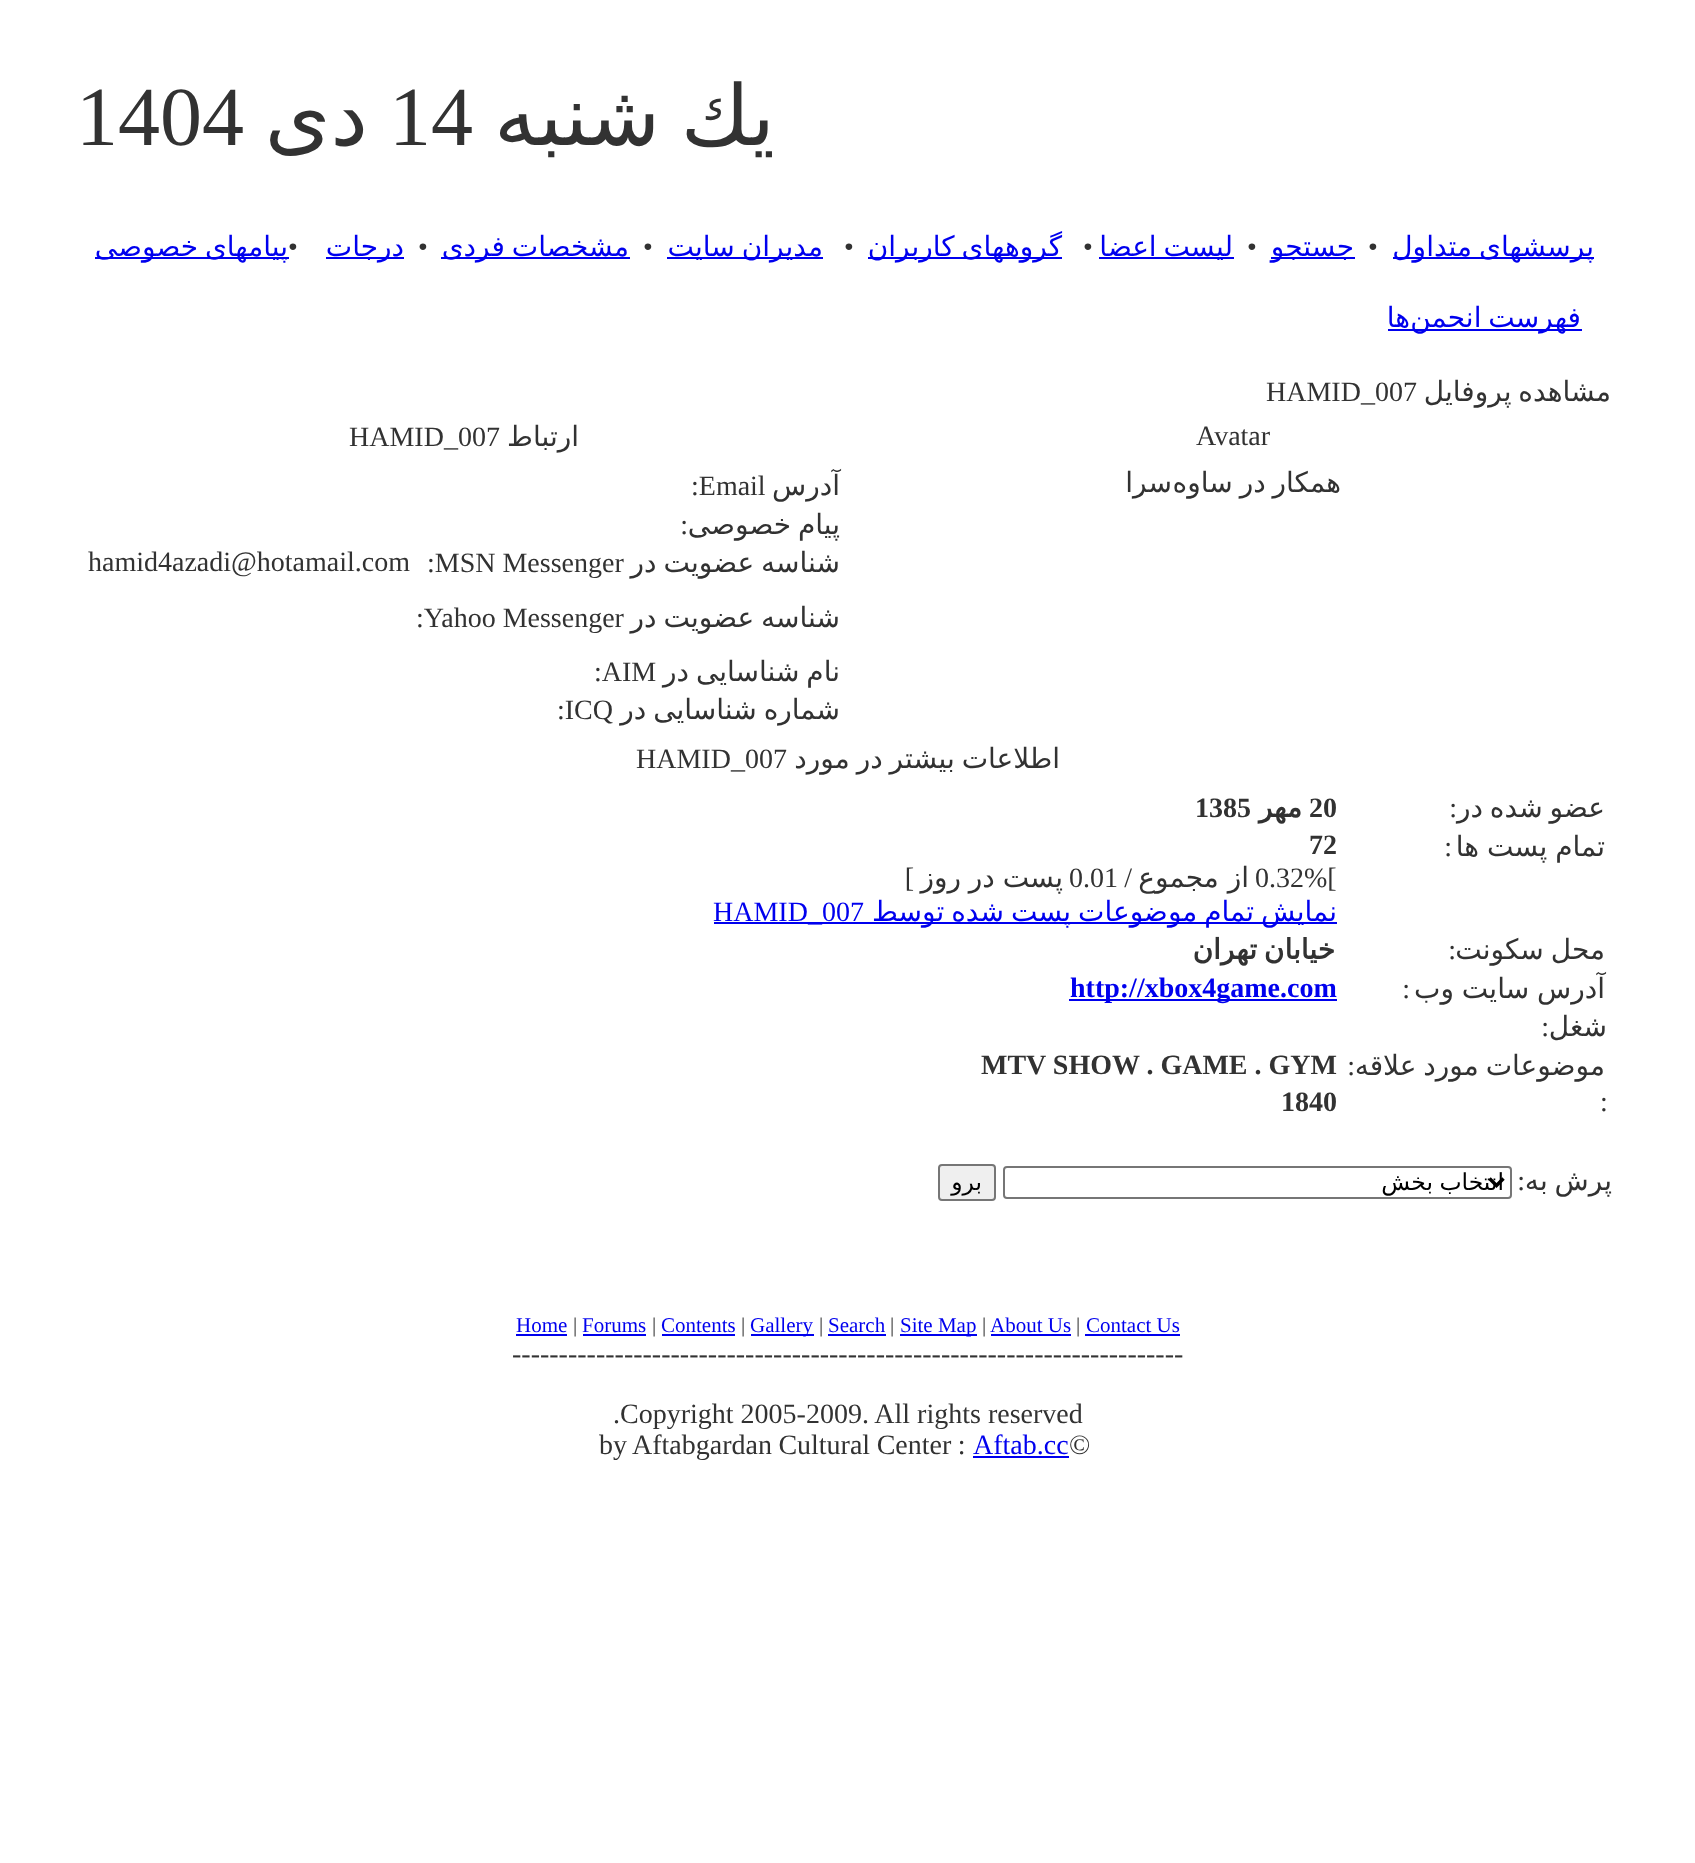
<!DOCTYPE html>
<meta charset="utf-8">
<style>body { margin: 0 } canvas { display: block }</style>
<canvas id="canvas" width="1695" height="1863"></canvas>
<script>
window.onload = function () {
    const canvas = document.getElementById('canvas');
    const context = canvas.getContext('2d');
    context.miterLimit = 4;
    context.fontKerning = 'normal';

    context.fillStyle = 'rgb(255, 255, 255)';
    context.fillRect(0, 0, 1695, 1863);
    context.fillStyle = 'rgb(0, 0, 238)';
    context.fillRect(95, 257, 194, 2);
    context.fillRect(326, 257, 78, 2);
    context.fillRect(441, 257, 189, 2);
    context.fillRect(667, 257, 156, 2);
    context.fillRect(868, 257, 194, 2);
    context.fillRect(1099, 257, 135, 2);
    context.fillRect(1271, 257, 84, 2);
    context.fillRect(1393, 257, 201, 2);
    context.fillRect(1388, 329, 194, 2);
    context.fillRect(714, 922, 623, 2);
    context.fillRect(1069, 999, 268, 2);
    context.fillStyle = 'rgb(239, 239, 239)';
    context.beginPath();
    context.roundRect(939, 1165, 56, 35, 3);
    context.fill();
    context.strokeStyle = 'rgb(118, 118, 118)';
    context.lineWidth = 2;
    context.stroke();
    context.beginPath();
    context.roundRect(1004, 1167, 507, 31, 3);
    context.stroke();
    context.beginPath();
    context.moveTo(1489.5, 1178.5);
    context.lineTo(1496.5, 1185.5);
    context.lineTo(1503.5, 1178.5);
    context.strokeStyle = 'rgb(0, 0, 0)';
    context.lineWidth = 3.5;
    context.stroke();
    context.fillStyle = 'rgb(0, 0, 238)';
    context.fillRect(516, 1334, 51, 2);
    context.fillRect(583, 1334, 63, 2);
    context.fillRect(662, 1334, 73, 2);
    context.fillRect(751, 1334, 63, 2);
    context.fillRect(828, 1334, 58, 2);
    context.fillRect(900, 1334, 77, 2);
    context.fillRect(991, 1334, 80, 2);
    context.fillRect(1085, 1334, 95, 2);
    context.fillRect(973, 1456, 96, 2);
    context.font = '84px Liberation Serif';
    context.fillStyle = 'rgb(50, 50, 50)';
    context.fillText('1404', 76, 145);
    context.direction = 'rtl';
    context.font = '84px DejaVu Sans';
    context.fillText('دی', 368, 145);
    context.direction = 'ltr';
    context.font = '84px Liberation Serif';
    context.fillText('14', 389, 145);
    context.wordSpacing = '-6px';
    context.direction = 'rtl';
    context.font = '84px DejaVu Sans';
    context.fillText('يك شنبه', 775, 145);
    context.wordSpacing = '-2px';
    context.font = '28px DejaVu Sans';
    context.fillStyle = 'rgb(0, 0, 238)';
    context.fillText('پیامهای خصوصی', 288, 256);
    context.wordSpacing = '0px';
    context.direction = 'ltr';
    context.font = '28px Liberation Serif';
    context.fillStyle = 'rgb(50, 50, 50)';
    context.fillText('•', 288, 256);
    context.direction = 'rtl';
    context.font = '28px DejaVu Sans';
    context.fillStyle = 'rgb(0, 0, 238)';
    context.fillText('درجات', 404, 256);
    context.direction = 'ltr';
    context.font = '28px Liberation Serif';
    context.fillStyle = 'rgb(50, 50, 50)';
    context.fillText('•', 418, 256);
    context.wordSpacing = '-2px';
    context.direction = 'rtl';
    context.font = '28px DejaVu Sans';
    context.fillStyle = 'rgb(0, 0, 238)';
    context.fillText('مشخصات فردی', 629, 256);
    context.wordSpacing = '0px';
    context.direction = 'ltr';
    context.font = '28px Liberation Serif';
    context.fillStyle = 'rgb(50, 50, 50)';
    context.fillText('•', 643, 256);
    context.wordSpacing = '-2px';
    context.direction = 'rtl';
    context.font = '28px DejaVu Sans';
    context.fillStyle = 'rgb(0, 0, 238)';
    context.fillText('مدیران سایت', 823, 256);
    context.wordSpacing = '0px';
    context.direction = 'ltr';
    context.font = '28px Liberation Serif';
    context.fillStyle = 'rgb(50, 50, 50)';
    context.fillText('•', 844, 256);
    context.wordSpacing = '-2px';
    context.direction = 'rtl';
    context.font = '28px DejaVu Sans';
    context.fillStyle = 'rgb(0, 0, 238)';
    context.fillText('گروههای کاربران', 1062, 256);
    context.wordSpacing = '0px';
    context.direction = 'ltr';
    context.font = '28px Liberation Serif';
    context.fillStyle = 'rgb(50, 50, 50)';
    context.fillText('•', 1083, 256);
    context.wordSpacing = '-2px';
    context.direction = 'rtl';
    context.font = '28px DejaVu Sans';
    context.fillStyle = 'rgb(0, 0, 238)';
    context.fillText('لیست اعضا', 1233, 256);
    context.wordSpacing = '0px';
    context.direction = 'ltr';
    context.font = '28px Liberation Serif';
    context.fillStyle = 'rgb(50, 50, 50)';
    context.fillText('•', 1247, 256);
    context.direction = 'rtl';
    context.font = '28px DejaVu Sans';
    context.fillStyle = 'rgb(0, 0, 238)';
    context.fillText('جستجو', 1354, 256);
    context.direction = 'ltr';
    context.font = '28px Liberation Serif';
    context.fillStyle = 'rgb(50, 50, 50)';
    context.fillText('•', 1368, 256);
    context.wordSpacing = '-2px';
    context.direction = 'rtl';
    context.font = '28px DejaVu Sans';
    context.fillStyle = 'rgb(0, 0, 238)';
    context.fillText('پرسشهای متداول', 1594, 256);
    context.wordSpacing = '0px';
    context.fillText('ها', 1410, 327);
    context.wordSpacing = '-2px';
    context.fillText('فهرست انجمن', 1581, 327);
    context.wordSpacing = '0px';
    context.direction = 'ltr';
    context.font = '28px Liberation Serif';
    context.fillStyle = 'rgb(50, 50, 50)';
    context.fillText('HAMID_007', 1266, 401);
    context.wordSpacing = '-2px';
    context.direction = 'rtl';
    context.font = '28px DejaVu Sans';
    context.fillText('مشاهده پروفایل', 1611, 401);
    context.wordSpacing = '0px';
    context.direction = 'ltr';
    context.font = '28px Liberation Serif';
    context.fillText('HAMID_007', 349, 446);
    context.direction = 'rtl';
    context.font = '28px DejaVu Sans';
    context.fillText('ارتباط', 579, 446);
    context.direction = 'ltr';
    context.font = '28px Liberation Serif';
    context.fillText('Avatar', 1196, 445);
    context.fillText(':Email', 691, 495);
    context.direction = 'rtl';
    context.font = '28px DejaVu Sans';
    context.fillText('آدرس', 840, 495);
    context.font = '28px Liberation Serif';
    context.fillText(':', 688, 534);
    context.wordSpacing = '-2px';
    context.font = '28px DejaVu Sans';
    context.fillText('پیام خصوصی', 840, 534);
    context.wordSpacing = '0px';
    context.direction = 'ltr';
    context.font = '28px Liberation Serif';
    context.fillText('hamid4azadi@hotamail.com', 88, 571);
    context.fillText(':MSN Messenger', 427, 572);
    context.wordSpacing = '-2px';
    context.direction = 'rtl';
    context.font = '28px DejaVu Sans';
    context.fillText('شناسه عضویت در', 840, 572);
    context.wordSpacing = '0px';
    context.direction = 'ltr';
    context.font = '28px Liberation Serif';
    context.fillText(':Yahoo Messenger', 416, 627);
    context.wordSpacing = '-2px';
    context.direction = 'rtl';
    context.font = '28px DejaVu Sans';
    context.fillText('شناسه عضویت در', 840, 627);
    context.wordSpacing = '0px';
    context.direction = 'ltr';
    context.font = '28px Liberation Serif';
    context.fillText(':AIM', 594, 681);
    context.wordSpacing = '-2px';
    context.direction = 'rtl';
    context.font = '28px DejaVu Sans';
    context.fillText('نام شناسایی در', 840, 681);
    context.wordSpacing = '0px';
    context.direction = 'ltr';
    context.font = '28px Liberation Serif';
    context.fillText(':ICQ', 557, 719);
    context.wordSpacing = '-2px';
    context.direction = 'rtl';
    context.font = '28px DejaVu Sans';
    context.fillText('شماره شناسایی در', 840, 719);
    context.wordSpacing = '0px';
    context.fillText('سرا', 1172, 492);
    context.wordSpacing = '-2px';
    context.fillText('همكار در ساوه', 1341, 492);
    context.wordSpacing = '0px';
    context.direction = 'ltr';
    context.font = '28px Liberation Serif';
    context.fillText('HAMID_007', 636, 768);
    context.wordSpacing = '-2px';
    context.direction = 'rtl';
    context.font = '28px DejaVu Sans';
    context.fillText('اطلاعات بیشتر در مورد', 1060, 768);
    context.wordSpacing = '0px';
    context.direction = 'ltr';
    context.font = 'bold 28px Liberation Serif';
    context.fillText('1385', 1195, 817);
    context.direction = 'rtl';
    context.font = 'bold 28px DejaVu Sans';
    context.fillText('مهر', 1302, 817);
    context.direction = 'ltr';
    context.font = 'bold 28px Liberation Serif';
    context.fillText('20', 1309, 817);
    context.direction = 'rtl';
    context.font = '28px Liberation Serif';
    context.fillText(':', 1457, 817);
    context.wordSpacing = '-2px';
    context.font = '28px DejaVu Sans';
    context.fillText('عضو شده در', 1605, 817);
    context.wordSpacing = '0px';
    context.direction = 'ltr';
    context.font = 'bold 28px Liberation Serif';
    context.fillText('72', 1309, 854);
    context.direction = 'rtl';
    context.font = '28px Liberation Serif';
    context.fillText(']', 914, 887);
    context.wordSpacing = '-1px';
    context.font = '28px DejaVu Sans';
    context.fillText('پست در روز', 1063, 887);
    context.wordSpacing = '0px';
    context.direction = 'ltr';
    context.font = '28px Liberation Serif';
    context.fillText('0.01', 1069, 887);
    context.direction = 'rtl';
    context.fillText('/', 1132, 887);
    context.font = '28px DejaVu Sans';
    context.fillText('از مجموع', 1249, 887);
    context.direction = 'ltr';
    context.font = '28px Liberation Serif';
    context.fillText('0.32%[', 1255, 887);
    context.fillStyle = 'rgb(0, 0, 238)';
    context.fillText('HAMID_007', 713, 921);
    context.wordSpacing = '-2px';
    context.direction = 'rtl';
    context.font = '28px DejaVu Sans';
    context.fillText('نمایش تمام موضوعات پست شده توسط', 1337, 921);
    context.wordSpacing = '0px';
    context.font = '28px Liberation Serif';
    context.fillStyle = 'rgb(50, 50, 50)';
    context.fillText(':', 1452, 856);
    context.wordSpacing = '-1px';
    context.font = '28px DejaVu Sans';
    context.fillText('تمام پست ها', 1605, 856);
    context.wordSpacing = '-2px';
    context.font = 'bold 28px DejaVu Sans';
    context.fillText('خيابان تهران', 1335, 959);
    context.wordSpacing = '0px';
    context.font = '28px Liberation Serif';
    context.fillText(':', 1456, 959);
    context.wordSpacing = '-2px';
    context.font = '28px DejaVu Sans';
    context.fillText('محل سکونت', 1605, 959);
    context.wordSpacing = '0px';
    context.direction = 'ltr';
    context.font = 'bold 28px Liberation Serif';
    context.fillStyle = 'rgb(0, 0, 238)';
    context.fillText('http://xbox4game.com', 1070, 997);
    context.direction = 'rtl';
    context.font = '28px Liberation Serif';
    context.fillStyle = 'rgb(50, 50, 50)';
    context.fillText(':', 1410, 998);
    context.wordSpacing = '-1px';
    context.font = '28px DejaVu Sans';
    context.fillText('آدرس سایت وب', 1605, 998);
    context.wordSpacing = '0px';
    context.font = '28px Liberation Serif';
    context.fillText(':', 1549, 1036);
    context.font = '28px DejaVu Sans';
    context.fillText('شغل', 1607, 1036);
    context.direction = 'ltr';
    context.font = 'bold 28px Liberation Serif';
    context.fillText('MTV SHOW . GAME . GYM', 981, 1074);
    context.direction = 'rtl';
    context.font = '28px Liberation Serif';
    context.fillText(':', 1355, 1075);
    context.wordSpacing = '-2px';
    context.font = '28px DejaVu Sans';
    context.fillText('موضوعات مورد علاقه', 1605, 1075);
    context.wordSpacing = '0px';
    context.direction = 'ltr';
    context.font = 'bold 28px Liberation Serif';
    context.fillText('1840', 1281, 1111);
    context.font = '28px Liberation Serif';
    context.fillText(':', 1600, 1111);
    context.direction = 'rtl';
    context.font = '23.5px DejaVu Sans';
    context.fillStyle = 'rgb(0, 0, 0)';
    context.fillText('برو', 982, 1190);
    context.wordSpacing = '-1px';
    context.fillText('انتخاب بخش', 1504, 1190);
    context.wordSpacing = '0px';
    context.font = '28px Liberation Serif';
    context.fillStyle = 'rgb(50, 50, 50)';
    context.fillText(':', 1525, 1190);
    context.wordSpacing = '-2px';
    context.font = '28px DejaVu Sans';
    context.fillText('پرش به', 1612, 1190);
    context.wordSpacing = '0px';
    context.direction = 'ltr';
    context.font = '21px Liberation Serif';
    context.fillStyle = 'rgb(0, 0, 238)';
    context.fillText('Home', 516, 1332);
    context.fillStyle = 'rgb(50, 50, 50)';
    context.fillText('|', 573, 1332);
    context.fillStyle = 'rgb(0, 0, 238)';
    context.fillText('Forums', 582, 1332);
    context.fillStyle = 'rgb(50, 50, 50)';
    context.fillText('|', 652, 1332);
    context.fillStyle = 'rgb(0, 0, 238)';
    context.fillText('Contents', 661, 1332);
    context.fillStyle = 'rgb(50, 50, 50)';
    context.fillText('|', 741, 1332);
    context.fillStyle = 'rgb(0, 0, 238)';
    context.fillText('Gallery', 750, 1332);
    context.fillStyle = 'rgb(50, 50, 50)';
    context.fillText('|', 819, 1332);
    context.fillStyle = 'rgb(0, 0, 238)';
    context.fillText('Search', 828, 1332);
    context.fillStyle = 'rgb(50, 50, 50)';
    context.fillText('|', 890, 1332);
    context.fillStyle = 'rgb(0, 0, 238)';
    context.fillText('Site Map', 900, 1332);
    context.fillStyle = 'rgb(50, 50, 50)';
    context.fillText('|', 982, 1332);
    context.fillStyle = 'rgb(0, 0, 238)';
    context.fillText('About Us', 990, 1332);
    context.fillStyle = 'rgb(50, 50, 50)';
    context.fillText('|', 1076, 1332);
    context.fillStyle = 'rgb(0, 0, 238)';
    context.fillText('Contact Us', 1086, 1332);
    context.font = '28px Liberation Serif';
    context.fillStyle = 'rgb(50, 50, 50)';
    context.fillText('------------------------------------------------------------------------', 512, 1363);
    context.fillText('.Copyright 2005-2009. All rights reserved', 613, 1423);
    context.wordSpacing = '-0.5px';
    context.fillText('by Aftabgardan Cultural Center :', 599, 1454);
    context.wordSpacing = '0px';
    context.fillStyle = 'rgb(0, 0, 238)';
    context.fillText('Aftab.cc', 973, 1454);
    context.fillStyle = 'rgb(50, 50, 50)';
    context.fillText('©', 1069, 1454);
};
</script>
